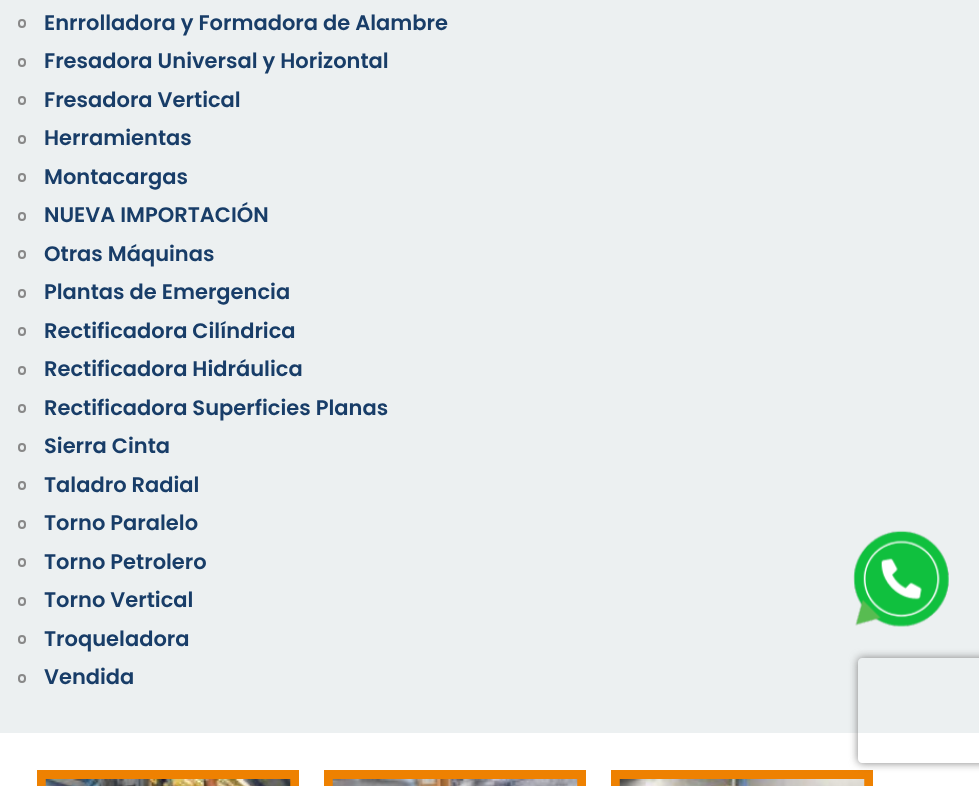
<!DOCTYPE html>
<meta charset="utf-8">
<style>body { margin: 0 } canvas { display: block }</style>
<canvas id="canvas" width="979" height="786"></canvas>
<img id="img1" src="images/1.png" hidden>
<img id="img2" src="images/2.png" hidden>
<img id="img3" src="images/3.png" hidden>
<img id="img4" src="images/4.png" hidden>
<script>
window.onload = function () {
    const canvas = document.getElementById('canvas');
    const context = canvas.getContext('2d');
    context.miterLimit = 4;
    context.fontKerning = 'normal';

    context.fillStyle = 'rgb(255, 255, 255)';
    context.fillRect(0, 0, 979, 786);
    context.fillStyle = 'rgb(236, 240, 241)';
    context.fillRect(0, 0, 979, 733);
    context.beginPath();
    context.roundRect(19, 20, 6, 7, 3);
    context.strokeStyle = 'rgb(136, 136, 136)';
    context.lineWidth = 2;
    context.stroke();
    context.beginPath();
    context.roundRect(19, 59, 6, 7, 3);
    context.stroke();
    context.beginPath();
    context.roundRect(19, 97, 6, 7, 3);
    context.stroke();
    context.beginPath();
    context.roundRect(19, 136, 6, 7, 3);
    context.stroke();
    context.beginPath();
    context.roundRect(19, 174, 6, 7, 3);
    context.stroke();
    context.beginPath();
    context.roundRect(19, 213, 6, 7, 3);
    context.stroke();
    context.beginPath();
    context.roundRect(19, 251, 6, 7, 3);
    context.stroke();
    context.beginPath();
    context.roundRect(19, 290, 6, 7, 3);
    context.stroke();
    context.beginPath();
    context.roundRect(19, 328, 6, 7, 3);
    context.stroke();
    context.beginPath();
    context.roundRect(19, 367, 6, 7, 3);
    context.stroke();
    context.beginPath();
    context.roundRect(19, 405, 6, 7, 3);
    context.stroke();
    context.beginPath();
    context.roundRect(19, 444, 6, 7, 3);
    context.stroke();
    context.beginPath();
    context.roundRect(19, 482, 6, 7, 3);
    context.stroke();
    context.beginPath();
    context.roundRect(19, 521, 6, 7, 3);
    context.stroke();
    context.beginPath();
    context.roundRect(19, 559, 6, 7, 3);
    context.stroke();
    context.beginPath();
    context.roundRect(19, 598, 6, 7, 3);
    context.stroke();
    context.beginPath();
    context.roundRect(19, 636, 6, 7, 3);
    context.stroke();
    context.beginPath();
    context.roundRect(19, 675, 6, 7, 3);
    context.stroke();
    context.strokeStyle = 'rgb(238, 129, 1)';
    context.lineWidth = 9;
    context.strokeRect(41.5, 774.5, 253, 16);
    context.drawImage(document.getElementById('img1'), 45, 779, 246, 7);
    context.strokeRect(328.5, 774.5, 253, 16);
    context.drawImage(document.getElementById('img2'), 332, 779, 246, 7);
    context.strokeRect(615.5, 774.5, 253, 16);
    context.drawImage(document.getElementById('img3'), 619, 779, 246, 7);
    context.drawImage(document.getElementById('img4'), 853, 530, 96, 97);
    context.save();
    context.beginPath();
    context.moveTo(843, 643);
    context.lineTo(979, 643);
    context.lineTo(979, 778);
    context.lineTo(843, 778);
    context.closePath();
    context.moveTo(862, 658);
    context.lineTo(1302, 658);
    context.bezierCurveTo(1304, 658, 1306, 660, 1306, 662);
    context.lineTo(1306, 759);
    context.bezierCurveTo(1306, 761, 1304, 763, 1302, 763);
    context.lineTo(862, 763);
    context.bezierCurveTo(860, 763, 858, 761, 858, 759);
    context.lineTo(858, 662);
    context.bezierCurveTo(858, 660, 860, 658, 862, 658);
    context.closePath();
    context.clip('evenodd');
    context.fillStyle = 'rgb(128, 128, 128)';
    context.filter = 'blur(4.5px)';
    context.beginPath();
    context.roundRect(858, 658, 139, 105, 4);
    context.fill();
    context.filter = 'none';
    context.restore();
    context.font = '600 21px Poppins';
    context.fillStyle = 'rgb(24, 61, 104)';
    context.fillText('Enrrolladora y Formadora de Alambre', 44, 30);
    context.fillText('Fresadora Universal y Horizontal', 44, 68);
    context.fillText('Fresadora Vertical', 44, 107);
    context.fillText('Herramientas', 44, 145);
    context.fillText('Montacargas', 44, 184);
    context.fillText('NUEVA IMPORTACIÓN', 44, 222);
    context.fillText('Otras Máquinas', 44, 261);
    context.fillText('Plantas de Emergencia', 44, 299);
    context.fillText('Rectificadora Cilíndrica', 44, 338);
    context.fillText('Rectificadora Hidráulica', 44, 376);
    context.fillText('Rectificadora Superficies Planas', 44, 415);
    context.fillText('Sierra Cinta', 44, 453);
    context.fillText('Taladro Radial', 44, 492);
    context.fillText('Torno Paralelo', 44, 530);
    context.fillText('Torno Petrolero', 44, 569);
    context.fillText('Torno Vertical', 44, 607);
    context.fillText('Troqueladora', 44, 646);
    context.fillText('Vendida', 44, 684);
};
</script>
